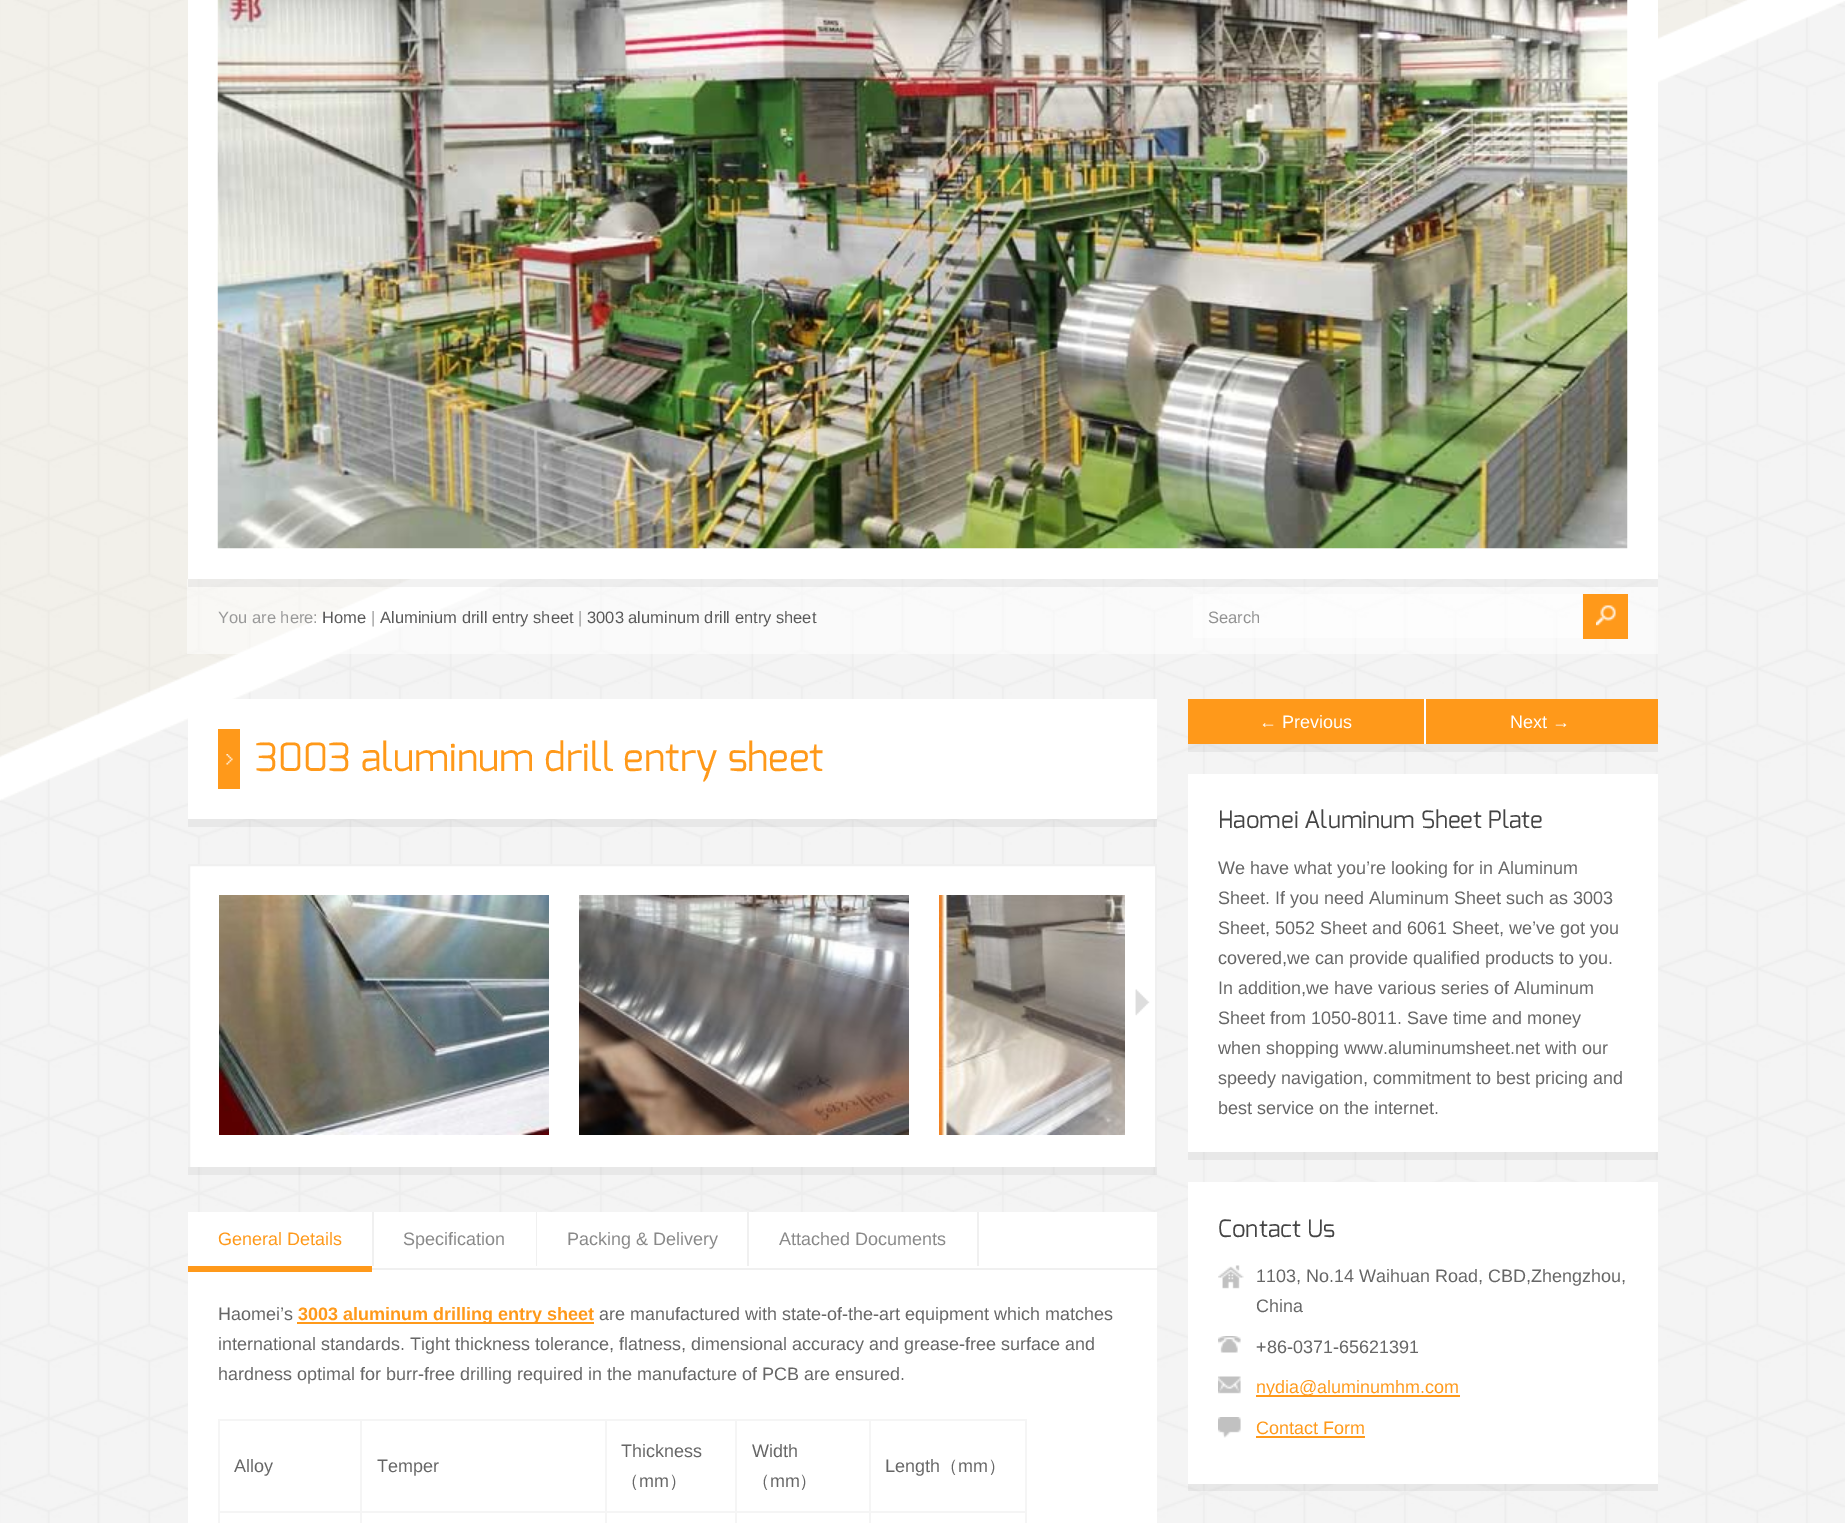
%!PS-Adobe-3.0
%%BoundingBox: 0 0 1845 1523
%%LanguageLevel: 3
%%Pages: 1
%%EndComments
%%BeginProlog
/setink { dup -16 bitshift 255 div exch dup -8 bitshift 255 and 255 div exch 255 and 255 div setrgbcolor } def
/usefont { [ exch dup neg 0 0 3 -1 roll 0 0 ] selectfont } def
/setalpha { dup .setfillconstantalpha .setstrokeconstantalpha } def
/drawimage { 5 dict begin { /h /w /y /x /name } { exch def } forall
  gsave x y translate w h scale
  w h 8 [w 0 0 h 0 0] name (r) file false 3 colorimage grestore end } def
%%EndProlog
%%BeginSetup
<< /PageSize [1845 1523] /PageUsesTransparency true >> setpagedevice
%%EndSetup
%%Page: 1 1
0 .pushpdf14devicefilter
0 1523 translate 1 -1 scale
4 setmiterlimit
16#FFFFFF setink
0 0 1845 1523 rectfill
(img1.raw) 0 0 1845 1523 drawimage
(img2.raw) 0 0 1845 801 drawimage
188 0 1470 579 rectfill
(img3.raw) 217 0 1411 549 drawimage
0.5 setalpha
187 579 1471 75 rectfill
0.05 setalpha
16#000000 setink
188 579 1470 8 rectfill
/LiberationSans-Regular 16.5 usefont
1 setalpha
16#999999 setink
218 623 moveto (You are here:) show
16#595959 setink
322 623 moveto (Home) show
16#999999 setink
371 623 moveto (|) show
16#595959 setink
380 623 moveto (Aluminium drill entry sheet) show
16#999999 setink
578 623 moveto (|) show
16#595959 setink
587 623 moveto (3003 aluminum drill entry sheet) show
0.5 setalpha
16#FFFFFF setink
1193 594 389 44 rectfill
1 setalpha
16#929292 setink
1208 623 moveto (Search) show
16#FF991A setink
1583 594 45 45 rectfill
(img4.raw) 1596 605 20 21 drawimage
0.05 setalpha
16#000000 setink
188 819 moveto 188 827 lineto 1157 827 lineto 1157 707 lineto 1156 707 lineto 1156 819 lineto closepath fill
1 setalpha
16#FFFFFF setink
188 699 969 120 rectfill
16#FF991A setink
218 729 22 60 rectfill
(img5.raw) 226 754 7 11 drawimage
/Exo-Regular 39 usefont
255 771 moveto (3003 aluminum drill entry sheet) show
0.05 setalpha
16#000000 setink
188 1167 moveto 188 1175 lineto 1157 1175 lineto 1157 872 lineto 1156 872 lineto 1156 1167 lineto closepath fill
1 setalpha
16#FFFFFF setink
190 866 965 301 rectfill
gsave
188 864 969 303 rectclip
16#F0F0F0 setink
2 setlinewidth
189 865 967 310 rectstroke
grestore
(img6.raw) 219 895 330 240 drawimage
(img7.raw) 579 895 330 240 drawimage
(img8.raw) 939 895 186 240 drawimage
(img9.raw) 1135 989 15 27 drawimage
[
    [188 1212 969 311 16#FFFFFF]
    [372 1268 785 2 16#F0F0F0]
    [372 1212 2 54 16#F0F0F0]
    [188 1266 184 6 16#FF991A]
] { aload pop setink rectfill } forall
/LiberationSans-Regular 18 usefont
218 1245 moveto (General Details) show
16#F0F0F0 setink
536 1212 1 54 rectfill
16#898989 setink
403 1245 moveto (Specification) show
16#F0F0F0 setink
747 1212 2 54 rectfill
16#898989 setink
567 1245 moveto (Packing & Delivery) show
16#F0F0F0 setink
977 1212 2 54 rectfill
16#898989 setink
779 1245 moveto (Attached Documents) show
16#666666 setink
218 1320 moveto (Haomei’s) show
16#FF991A setink
297 1322 297 2 rectfill
/LiberationSans-Bold 18 usefont
298 1320 moveto (3003 aluminum drilling entry sheet) show
/LiberationSans-Regular 18 usefont
16#666666 setink
[
    [(are manufactured with state-of-the-art equipment which matches) 599 1320]
    [(international standards. Tight thickness tolerance, flatness, dimensional accuracy and grease-free surface and) 218 1350]
    [(hardness optimal for burr-free drilling required in the manufacture of PCB are ensured.) 218 1380]
] { aload pop moveto show } forall
[
    [218 1419 808 2 16#F5F5F5]
    [1025 1419 2 104 16#F5F5F5]
    [218 1511 807 2 16#F5F5F5]
    [218 1421 2 102 16#F5F5F5]
] { aload pop setink rectfill } forall
16#666666 setink
234 1472 moveto (Alloy) show
16#F5F5F5 setink
360 1421 2 102 rectfill
16#666666 setink
377 1472 moveto (Temper) show
16#F5F5F5 setink
605 1421 2 102 rectfill
16#666666 setink
621 1457 moveto (Thickness) show
/WenQuanYiZenHei-Medium 18 usefont
621 1487 moveto (（) show
/LiberationSans-Regular 18 usefont
639 1487 moveto (mm) show
/WenQuanYiZenHei-Medium 18 usefont
669 1487 moveto (）) show
16#F5F5F5 setink
735 1421 2 102 rectfill
/LiberationSans-Regular 18 usefont
16#666666 setink
752 1457 moveto (Width) show
/WenQuanYiZenHei-Medium 18 usefont
752 1487 moveto (（) show
/LiberationSans-Regular 18 usefont
770 1487 moveto (mm) show
/WenQuanYiZenHei-Medium 18 usefont
799 1487 moveto (）) show
16#F5F5F5 setink
869 1421 2 102 rectfill
/LiberationSans-Regular 18 usefont
16#666666 setink
885 1472 moveto (Length) show
/WenQuanYiZenHei-Medium 18 usefont
940 1472 moveto (（) show
/LiberationSans-Regular 18 usefont
958 1472 moveto (mm) show
/WenQuanYiZenHei-Medium 18 usefont
988 1472 moveto (）) show
0.05 setalpha
16#000000 setink
1188 744 moveto 1188 752 lineto 1424 752 lineto 1424 707 lineto 1424 744 lineto closepath fill
1 setalpha
16#FF991A setink
1188 699 236 45 rectfill
/LiberationSans-Regular 18 usefont
16#FFFFFF setink
1259 728 moveto (← Previous) show
0.05 setalpha
16#000000 setink
1424 744 moveto 1424 752 lineto 1658 752 lineto 1658 707 lineto 1658 744 lineto closepath fill
1 setalpha
16#FF991A setink
1426 699 232 45 rectfill
16#FFFFFF setink
1424 699 2 45 rectfill
1510 728 moveto (Next →) show
0.05 setalpha
16#000000 setink
1188 1152 moveto 1188 1160 lineto 1658 1160 lineto 1658 782 lineto 1658 1152 lineto closepath fill
1 setalpha
16#FFFFFF setink
1188 774 470 378 rectfill
/Exo-Regular 24 usefont
16#444444 setink
1218 828 moveto (Haomei Aluminum Sheet Plate) show
/LiberationSans-Regular 18 usefont
16#666666 setink
[
    [(We have what you’re looking for in Aluminum) 1218 874]
    [(Sheet. If you need Aluminum Sheet such as 3003) 1218 904]
    [(Sheet, 5052 Sheet and 6061 Sheet, we’ve got you) 1218 934]
    [(covered,we can provide qualified products to you.) 1218 964]
    [(In addition,we have various series of Aluminum) 1218 994]
    [(Sheet from 1050-8011. Save time and money) 1218 1024]
    [(when shopping www.aluminumsheet.net with our) 1218 1054]
    [(speedy navigation, commitment to best pricing and) 1218 1084]
    [(best service on the internet.) 1218 1114]
] { aload pop moveto show } forall
0.05 setalpha
16#000000 setink
1188 1484 moveto 1188 1491 lineto 1658 1491 lineto 1658 1190 lineto 1658 1484 lineto closepath fill
1 setalpha
16#FFFFFF setink
1188 1182 470 302 rectfill
/Exo-Regular 24 usefont
16#444444 setink
1218 1237 moveto (Contact Us) show
(img10.raw) 1218 1265 26 24 drawimage
/LiberationSans-Regular 18 usefont
16#666666 setink
1256 1282 moveto (1103, No.14 Waihuan Road, CBD,Zhengzhou,) show
1256 1312 moveto (China) show
(img11.raw) 1218 1336 23 17 drawimage
1256 1353 moveto (+86-0371-65621391) show
(img12.raw) 1218 1376 23 18 drawimage
16#FF991A setink
1256 1395 204 2 rectfill
1256 1393 moveto (nydia@aluminumhm.com) show
(img13.raw) 1218 1417 23 21 drawimage
1256 1434 moveto (Contact Form) show
1256 1436 109 2 rectfill
.poppdf14devicefilter showpage
%%EOF
